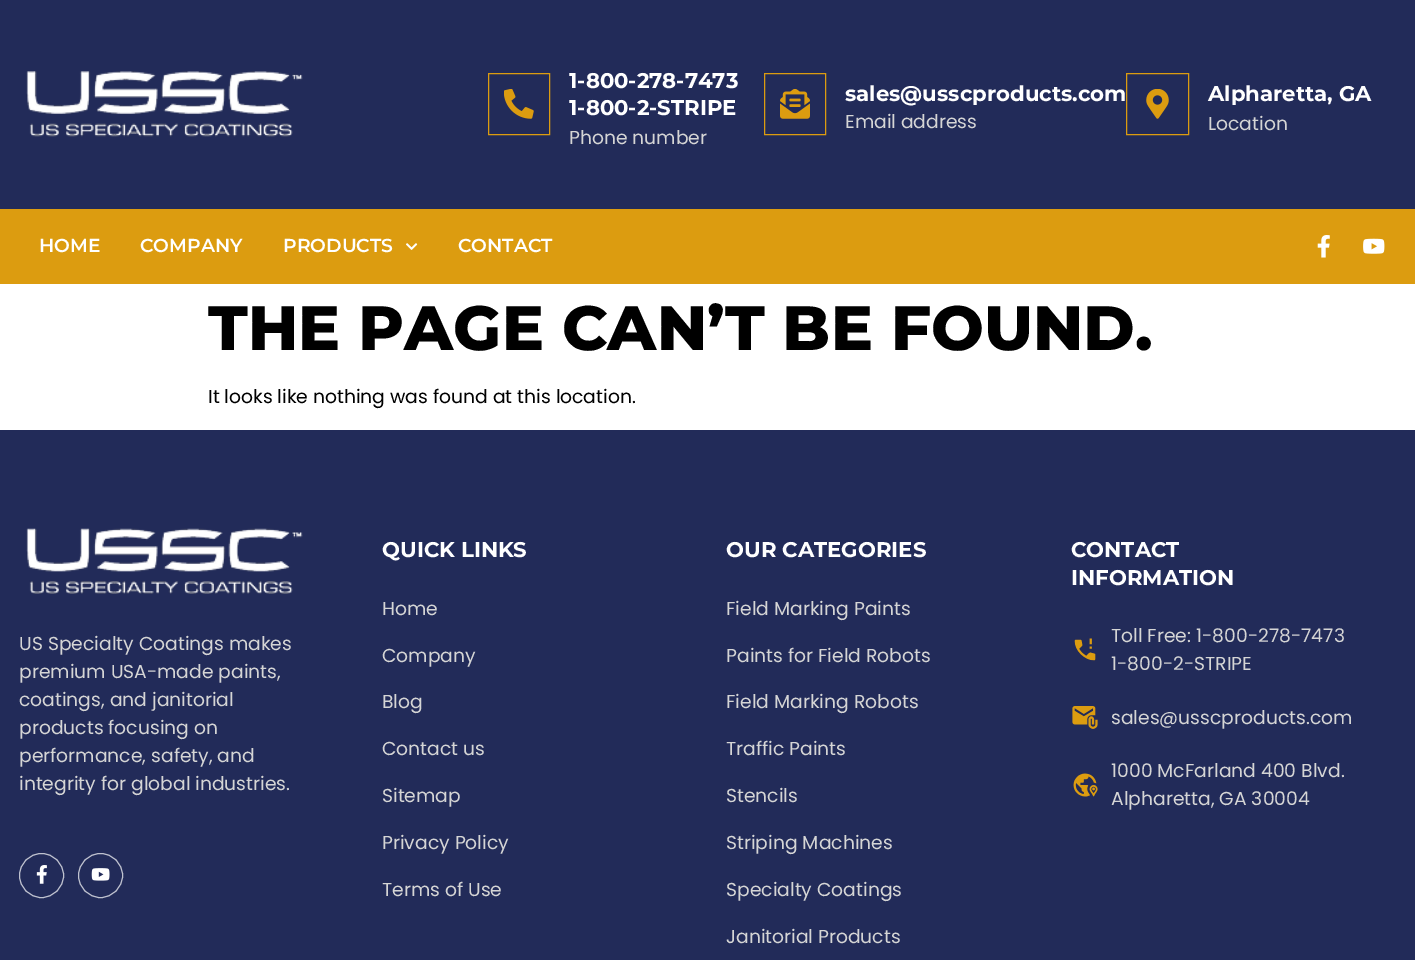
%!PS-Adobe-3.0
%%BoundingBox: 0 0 1415 960
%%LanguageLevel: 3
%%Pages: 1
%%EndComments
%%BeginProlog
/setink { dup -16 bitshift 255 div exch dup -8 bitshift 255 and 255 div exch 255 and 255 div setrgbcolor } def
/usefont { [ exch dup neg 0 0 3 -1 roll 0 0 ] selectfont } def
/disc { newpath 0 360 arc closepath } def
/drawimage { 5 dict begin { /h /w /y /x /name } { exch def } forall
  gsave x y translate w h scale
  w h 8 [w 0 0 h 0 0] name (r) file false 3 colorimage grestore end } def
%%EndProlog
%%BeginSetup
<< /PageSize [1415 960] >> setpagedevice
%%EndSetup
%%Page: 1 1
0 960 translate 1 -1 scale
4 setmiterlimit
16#FFFFFF setink
0 0 1415 960 rectfill
16#222B59 setink
0 0 1415 209 rectfill
(img1.raw) 26 71 277 66 drawimage
16#DC9C10 setink
488.5 73.5 61 61 rectstroke
(img2.raw) 504 89 30 30 drawimage
/Montserrat-Bold 21.25 usefont
16#FFFFFF setink
569 88 moveto (1-800-278-7473) show
569 115 moveto (1-800-2-STRIPE) show
/Poppins-Regular 18.75 usefont
16#D5D5D5 setink
569 144 moveto (Phone number) show
16#DC9C10 setink
764.5 73.5 61 61 rectstroke
(img3.raw) 780 89 30 30 drawimage
/Montserrat-Bold 21.25 usefont
16#FFFFFF setink
845 101 moveto (sales@usscproducts.com) show
/Poppins-Regular 18.75 usefont
16#D5D5D5 setink
845 128 moveto (Email address) show
16#DC9C10 setink
1126.5 73.5 62 61 rectstroke
(img4.raw) 1146 89 23 30 drawimage
/Montserrat-Bold 21.25 usefont
16#FFFFFF setink
1208 101 moveto (Alpharetta, GA) show
/Poppins-Regular 18.75 usefont
16#D5D5D5 setink
1208 130 moveto (Location) show
16#DC9C10 setink
0 209 1415 75 rectfill
/Montserrat-SemiBold 18.75 usefont
16#FFFFFF setink
[
    [(HOME) 39 252]
    [(COMPANY) 140 252]
    [(PRODUCTS) 283 252]
] { aload pop moveto show } forall
(img5.raw) 406 243 12 7 drawimage
458 252 moveto (CONTACT) show
(img6.raw) 1317 235 13 23 drawimage
(img7.raw) 1363 238 22 16 drawimage
/Montserrat-ExtraBold 62.5 usefont
16#000000 setink
208 350 moveto (THE PAGE CAN’T BE FOUND.) show
/Poppins-Regular 18.75 usefont
208 403 moveto (It looks like nothing was found at this location.) show
16#222B59 setink
0 430 1415 530 rectfill
(img8.raw) 26 528 277 66 drawimage
16#D5D5D5 setink
[
    [(US Specialty Coatings makes) 19 650]
    [(premium USA-made paints,) 19 678]
    [(coatings, and janitorial) 19 706]
    [(products focusing on) 19 734]
    [(performance, safety, and) 19 762]
    [(integrity for global industries.) 19 790]
] { aload pop moveto show } forall
16#BFC2CF setink
41.5 875.5 22 disc stroke
(img9.raw) 36 865 11 19 drawimage
100.5 875.5 22 disc stroke
(img10.raw) 91 868 19 13 drawimage
/Montserrat-Bold 21.25 usefont
16#FFFFFF setink
382 557 moveto (QUICK LINKS) show
/Poppins-Regular 18.75 usefont
16#D5D5D5 setink
[
    [(Home) 382 615]
    [(Company) 382 662]
    [(Blog) 382 708]
    [(Contact us) 382 755]
    [(Sitemap) 382 802]
    [(Privacy Policy) 382 849]
    [(Terms of Use) 382 896]
] { aload pop moveto show } forall
/Montserrat-Bold 21.25 usefont
16#FFFFFF setink
726 557 moveto (OUR CATEGORIES) show
/Poppins-Regular 18.75 usefont
16#D5D5D5 setink
[
    [(Field Marking Paints) 726 615]
    [(Paints for Field Robots) 726 662]
    [(Field Marking Robots) 726 708]
    [(Traffic Paints) 726 755]
    [(Stencils) 726 802]
    [(Striping Machines) 726 849]
    [(Specialty Coatings) 726 896]
    [(Janitorial Products) 726 943]
] { aload pop moveto show } forall
/Montserrat-Bold 21.25 usefont
16#FFFFFF setink
1071 557 moveto (CONTACT) show
1071 585 moveto (INFORMATION) show
(img11.raw) 1074 638 22 23 drawimage
/Poppins-Regular 18.75 usefont
16#D5D5D5 setink
1111 642 moveto (Toll Free: 1-800-278-7473) show
1111 670 moveto (1-800-2-STRIPE) show
(img12.raw) 1072 706 26 23 drawimage
1111 724 moveto (sales@usscproducts.com) show
(img13.raw) 1073 773 25 24 drawimage
1111 777 moveto (1000 McFarland 400 Blvd.) show
1111 805 moveto (Alpharetta, GA 30004) show
showpage
%%EOF
